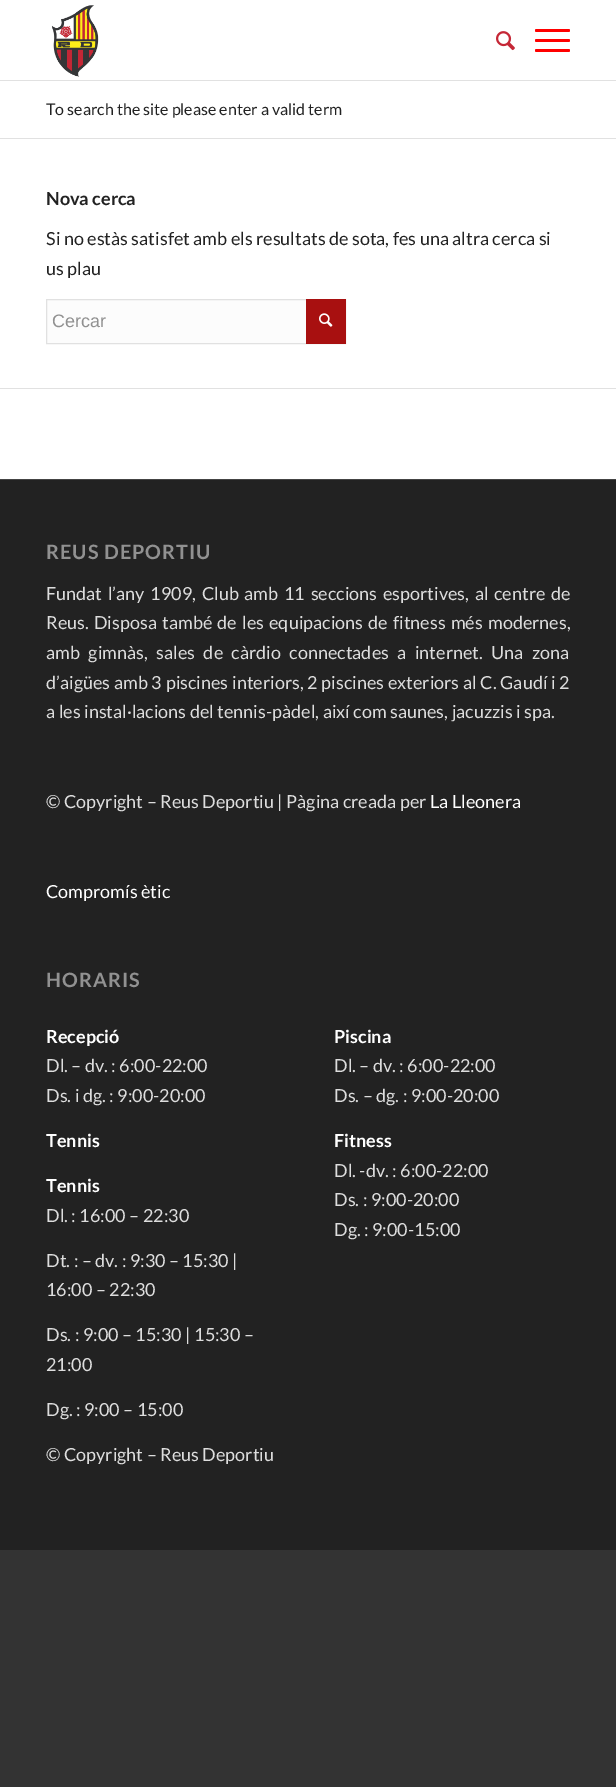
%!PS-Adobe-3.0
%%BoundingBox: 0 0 616 1787
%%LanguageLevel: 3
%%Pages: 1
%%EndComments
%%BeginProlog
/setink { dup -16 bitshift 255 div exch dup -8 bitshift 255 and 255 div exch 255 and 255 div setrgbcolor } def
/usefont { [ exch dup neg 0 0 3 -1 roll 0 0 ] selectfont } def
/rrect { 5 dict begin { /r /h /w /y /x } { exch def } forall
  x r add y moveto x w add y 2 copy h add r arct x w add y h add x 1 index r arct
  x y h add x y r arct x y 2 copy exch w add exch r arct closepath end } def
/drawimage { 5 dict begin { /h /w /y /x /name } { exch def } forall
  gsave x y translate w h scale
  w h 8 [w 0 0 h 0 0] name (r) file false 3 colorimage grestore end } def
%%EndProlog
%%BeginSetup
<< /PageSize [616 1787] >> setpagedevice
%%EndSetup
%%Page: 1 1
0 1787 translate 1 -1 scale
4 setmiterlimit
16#333333 setink
0 0 616 1787 rectfill
16#FFFFFF setink
0 0 616 80 rectfill
16#E1E1E1 setink
0 80 616 1 rectfill
(img1.raw) 51 5 48 72 drawimage
(img2.raw) 496 31 19 20 drawimage
16#FF0000 setink
535 39 35 3 1.5 rrect fill
535 29 35 3 1.5 rrect fill
535 49 35 3 1.5 rrect fill
16#FFFFFF setink
0 81 616 398 rectfill
/Lato-Regular 16 usefont
16#222222 setink
46 115 moveto (To search the site please enter a valid term) show
16#E1E1E1 setink
0 138 616 1 rectfill
/Lato-Bold 18 usefont
16#222222 setink
46 205 moveto (Nova cerca) show
/Lato-Regular 18 usefont
46 245 moveto (Si no estàs satisfet amb els resultats de sota, fes una altra cerca si) show
46 275 moveto (us plau) show
16#FCFCFC setink
47 300 259 43 rectfill
16#E1E1E1 setink
46.5 299.5 299 44 rectstroke
/LiberationSans-Regular 18 usefont
16#919191 setink
52 327 moveto (Cercar) show
16#A81010 setink
306 299 40 45 rectfill
(img3.raw) 319 313 14 14 drawimage
[
    [0 388 616 1 16#E1E1E1]
    [0 480 616 1070 16#222222]
    [0 479 616 1 16#444444]
] { aload pop setink rectfill } forall
/Lato-Bold 19.75 usefont
16#919191 setink
46 559 moveto 1 0 (REUS DEPORTIU) ashow
/Lato-Regular 18 usefont
16#DDDDDD setink
46 600 moveto 2.25 0 32 (Fundat l’any 1909, Club amb 11 seccions esportives, al centre de) widthshow
46 629 moveto 1.75 0 32 (Reus. Disposa també de les equipacions de fitness més modernes,) widthshow
46 659 moveto 5 0 32 (amb gimnàs, sales de càrdio connectades a internet. Una zona) widthshow
46 689 moveto 0.25 0 32 (d’aigües amb 3 piscines interiors, 2 piscines exteriors al C. Gaudí i 2) widthshow
46 718 moveto (a les instal·lacions del tennis-pàdel, així com saunes, jacuzzis i spa.) show
46 808 moveto (© Copyright – Reus Deportiu | Pàgina creada per) show
16#FFFFFF setink
430 808 moveto (La Lleonera) show
46 898 moveto (Compromís ètic) show
/Lato-Bold 19.75 usefont
16#919191 setink
46 987 moveto 1 0 (HORARIS) ashow
/Lato-Bold 18 usefont
16#FFFFFF setink
46 1043 moveto (Recepció) show
/Lato-Regular 18 usefont
16#DDDDDD setink
46 1072 moveto (Dl. – dv. : 6:00-22:00) show
46 1102 moveto (Ds. i dg. : 9:00-20:00) show
/Lato-Bold 18 usefont
16#FFFFFF setink
46 1147 moveto (Tennis) show
46 1192 moveto (Tennis) show
/Lato-Regular 18 usefont
16#DDDDDD setink
[
    [(Dl. : 16:00 – 22:30) 46 1222]
    [(Dt. : – dv. : 9:30 – 15:30 |) 46 1267]
    [(16:00 – 22:30) 46 1296]
    [(Ds. : 9:00 – 15:30 | 15:30 –) 46 1341]
    [(21:00) 46 1371]
    [(Dg. : 9:00 – 15:00) 46 1416]
] { aload pop moveto show } forall
/Lato-Bold 18 usefont
16#FFFFFF setink
334 1043 moveto (Piscina) show
/Lato-Regular 18 usefont
16#DDDDDD setink
334 1072 moveto (Dl. – dv. : 6:00-22:00) show
334 1102 moveto (Ds. – dg. : 9:00-20:00) show
/Lato-Bold 18 usefont
16#FFFFFF setink
334 1147 moveto (Fitness) show
/Lato-Regular 18 usefont
16#DDDDDD setink
[
    [(Dl. -dv. : 6:00-22:00) 334 1177]
    [(Ds. : 9:00-20:00) 334 1206]
    [(Dg. : 9:00-15:00) 334 1236]
    [(© Copyright – Reus Deportiu) 46 1461]
] { aload pop moveto show } forall
showpage
%%EOF
